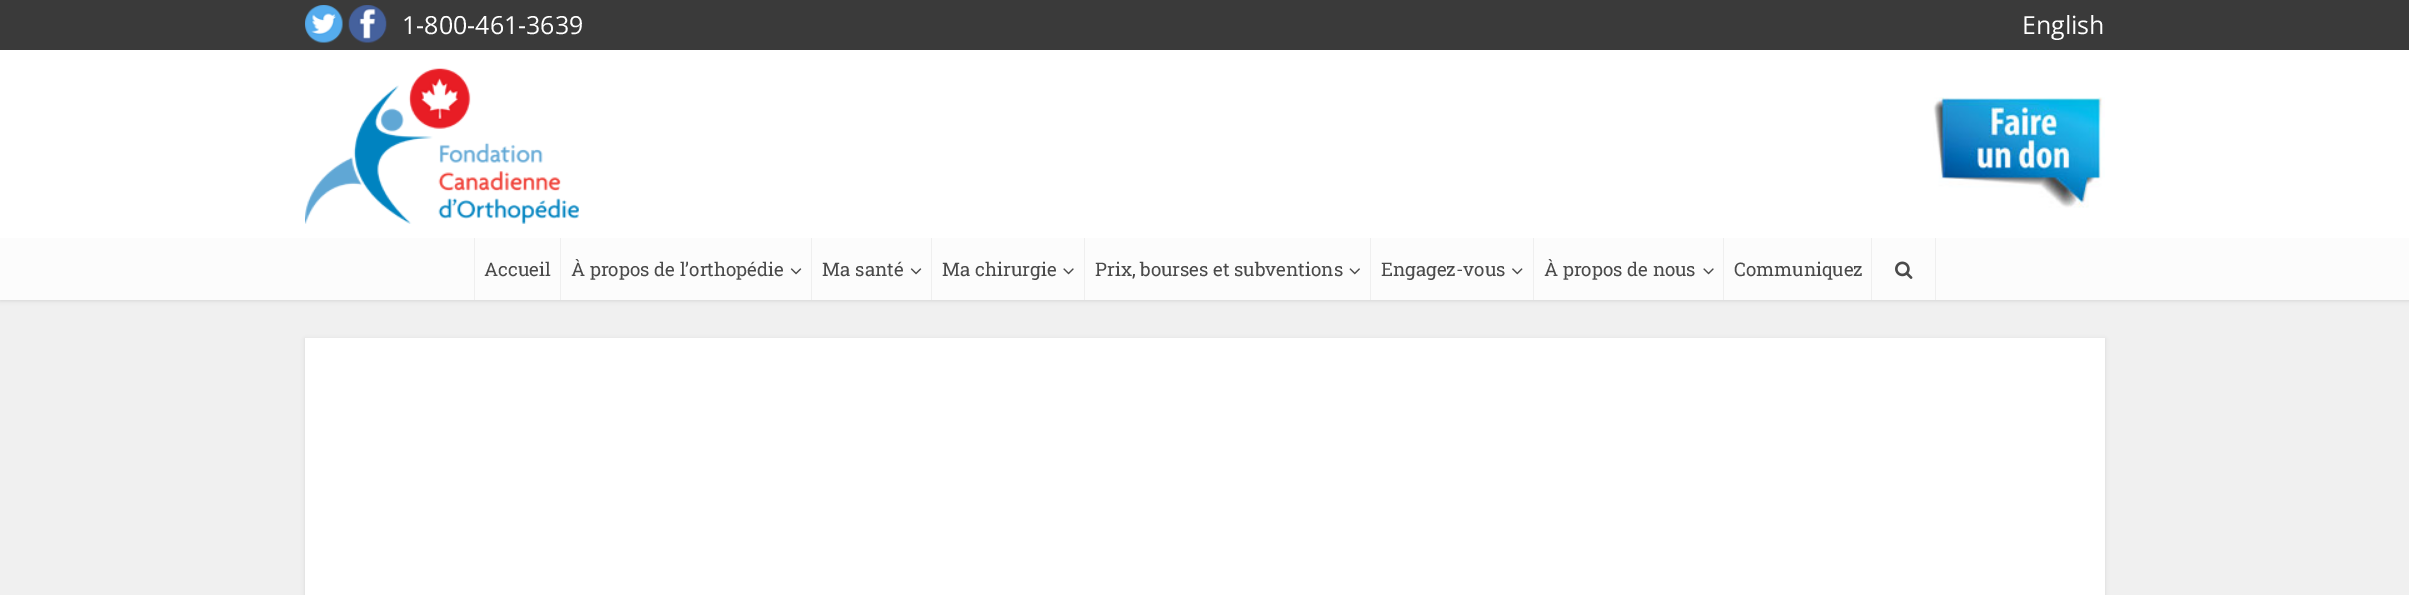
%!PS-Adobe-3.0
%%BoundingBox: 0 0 2409 595
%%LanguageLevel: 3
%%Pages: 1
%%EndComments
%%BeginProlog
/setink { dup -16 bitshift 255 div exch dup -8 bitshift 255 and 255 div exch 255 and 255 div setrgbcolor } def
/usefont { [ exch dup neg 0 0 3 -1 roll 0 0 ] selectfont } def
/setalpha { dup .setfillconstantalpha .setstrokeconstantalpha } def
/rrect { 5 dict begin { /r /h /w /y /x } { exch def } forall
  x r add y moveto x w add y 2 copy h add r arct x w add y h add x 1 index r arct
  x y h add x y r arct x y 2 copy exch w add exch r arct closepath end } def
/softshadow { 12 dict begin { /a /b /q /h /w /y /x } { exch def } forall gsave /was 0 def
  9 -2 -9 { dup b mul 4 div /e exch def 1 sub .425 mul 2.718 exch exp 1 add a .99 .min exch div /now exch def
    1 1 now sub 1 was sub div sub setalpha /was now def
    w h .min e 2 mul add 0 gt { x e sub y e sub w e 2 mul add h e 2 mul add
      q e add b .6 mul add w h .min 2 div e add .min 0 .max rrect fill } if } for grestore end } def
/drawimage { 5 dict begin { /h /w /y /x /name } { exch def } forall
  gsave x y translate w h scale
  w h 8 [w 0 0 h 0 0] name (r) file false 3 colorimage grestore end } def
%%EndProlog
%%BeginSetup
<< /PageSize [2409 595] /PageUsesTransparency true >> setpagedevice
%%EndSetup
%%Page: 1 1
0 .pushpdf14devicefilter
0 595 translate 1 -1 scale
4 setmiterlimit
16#F0F0F0 setink
0 0 2409 595 rectfill
16#000000 setink
0 1 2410 300 0 2 0.1 softshadow
16#FFFFFF setink
0 50 2409 188 rectfill
16#3A3A3A setink
0 0 2409 50 rectfill
(img1.raw) 305 5 38 38 drawimage
(img2.raw) 348 5 39 38 drawimage
/OpenSans-Regular 25 usefont
16#FFFFFF setink
402 34 moveto (1-800-461-3639) show
2022 34 moveto (English) show
(img3.raw) 305 68 274 156 drawimage
(img4.raw) 1933 97 172 111 drawimage
16#FCFCFC setink
0 238 2409 62 rectfill
16#EFEFEF setink
474 238 1 62 rectfill
/RobotoSlab-Regular 18.75 usefont
16#4A4A4A setink
484 276 moveto (Accueil) show
16#EFEFEF setink
560 238 1 62 rectfill
16#4A4A4A setink
571 276 moveto (À propos de l’orthopédie) show
(img5.raw) 790 268 12 7 drawimage
16#EFEFEF setink
811 238 1 62 rectfill
16#4A4A4A setink
822 276 moveto (Ma santé) show
(img5.raw) 910 268 12 7 drawimage
16#EFEFEF setink
931 238 1 62 rectfill
16#4A4A4A setink
942 276 moveto (Ma chirurgie) show
(img6.raw) 1063 268 11 7 drawimage
16#EFEFEF setink
1084 238 1 62 rectfill
16#4A4A4A setink
1095 276 moveto (Prix, bourses et subventions) show
(img7.raw) 1349 268 11 7 drawimage
16#EFEFEF setink
1370 238 1 62 rectfill
16#4A4A4A setink
1381 276 moveto (Engagez-vous) show
(img8.raw) 1512 268 11 7 drawimage
16#EFEFEF setink
1533 238 1 62 rectfill
16#4A4A4A setink
1544 276 moveto (À propos de nous) show
(img6.raw) 1703 268 11 7 drawimage
16#EFEFEF setink
1723 238 1 62 rectfill
16#4A4A4A setink
1734 276 moveto (Communiquez) show
16#EFEFEF setink
1935 238 1 62 rectfill
1871 238 1 62 rectfill
(img9.raw) 1895 261 18 18 drawimage
16#000000 setink
305 339 1800 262 0 2 0.1 softshadow
16#FFFFFF setink
305 338 1800 257 rectfill
.poppdf14devicefilter showpage
%%EOF
